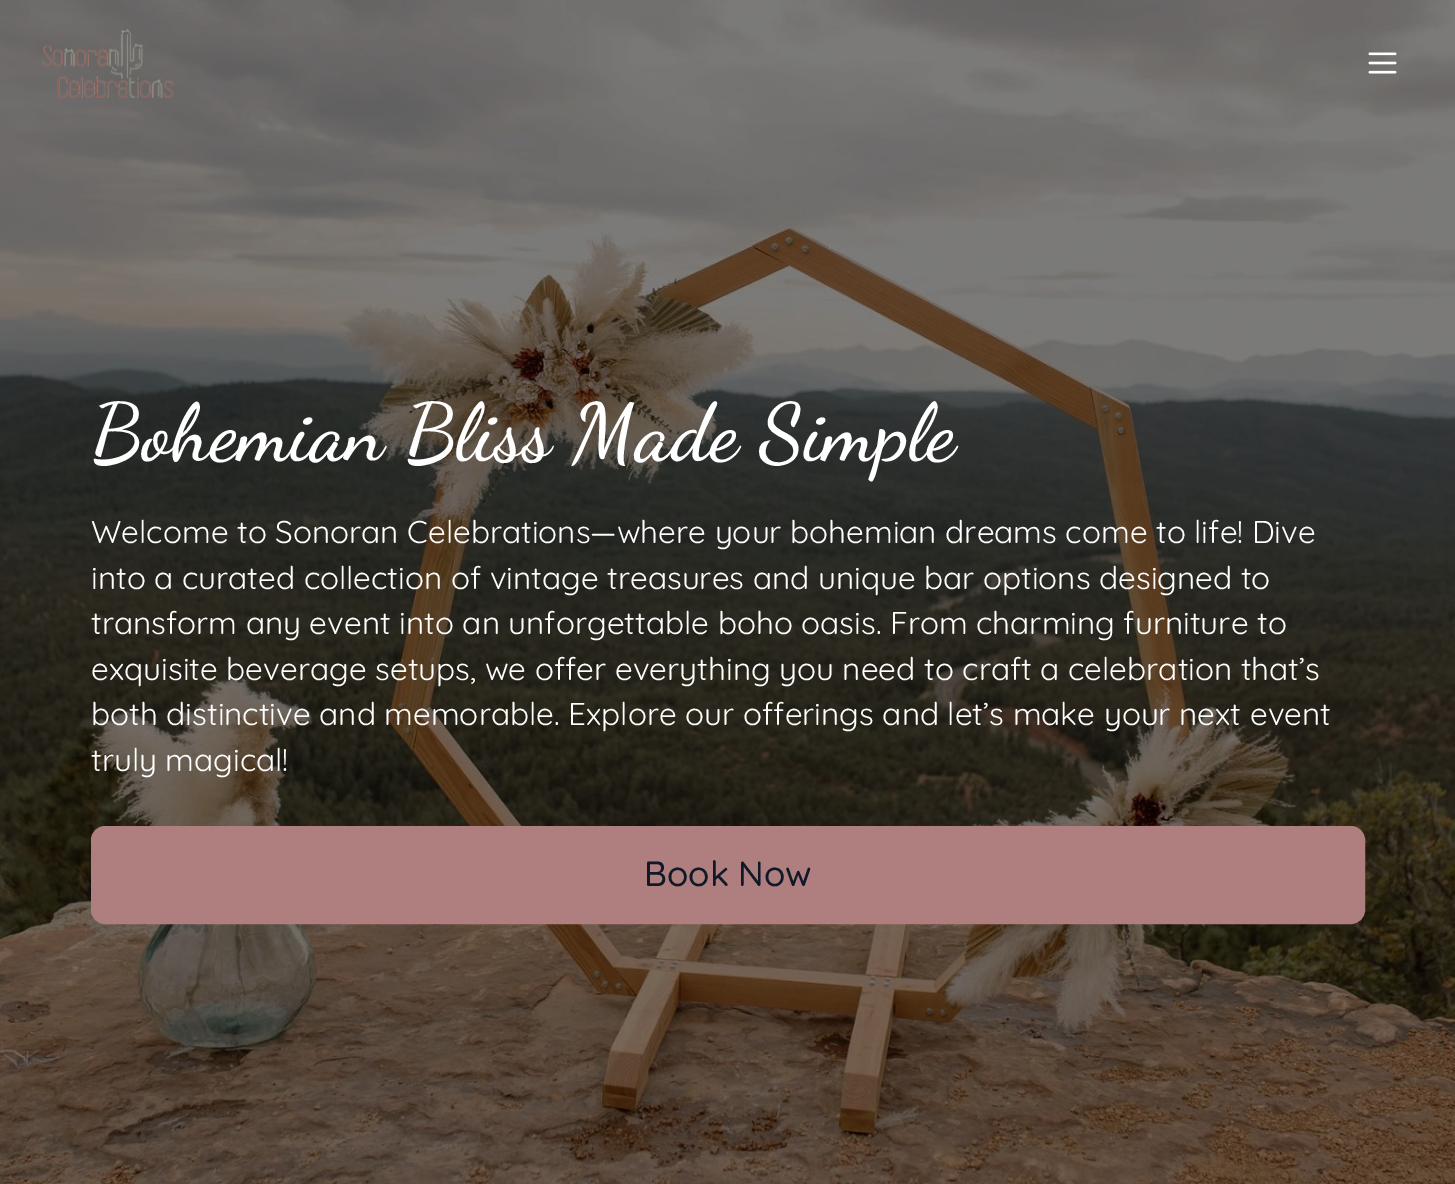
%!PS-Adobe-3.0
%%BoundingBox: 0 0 1455 1184
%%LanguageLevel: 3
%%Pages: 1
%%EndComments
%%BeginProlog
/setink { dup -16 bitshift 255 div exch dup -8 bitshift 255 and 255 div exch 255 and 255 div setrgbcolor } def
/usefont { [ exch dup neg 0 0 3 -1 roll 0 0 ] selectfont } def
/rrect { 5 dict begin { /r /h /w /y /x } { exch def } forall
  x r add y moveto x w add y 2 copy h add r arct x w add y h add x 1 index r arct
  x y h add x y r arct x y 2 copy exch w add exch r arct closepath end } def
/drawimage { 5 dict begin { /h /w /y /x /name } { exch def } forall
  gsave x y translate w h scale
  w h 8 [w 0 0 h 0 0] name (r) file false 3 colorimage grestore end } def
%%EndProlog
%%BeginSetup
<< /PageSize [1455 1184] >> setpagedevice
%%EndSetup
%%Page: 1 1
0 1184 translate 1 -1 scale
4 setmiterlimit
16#FFFFFF setink
0 0 1455 1184 rectfill
(img3.raw) 0 0 1455 1184 drawimage
(img1.raw) 42 28 132 70 drawimage
(img2.raw) 1368 52 29 22 drawimage
/DancingScript-SemiBold 80.5 usefont
91 459 moveto (Bohemian Bliss Made Simple) show
/Quicksand-Regular 31.5 usefont
[
    [(Welcome to Sonoran Celebrations—where your bohemian dreams come to life! Dive) 91 543]
    [(into a curated collection of vintage treasures and unique bar options designed to) 91 589]
    [(transform any event into an unforgettable boho oasis. From charming furniture to) 91 634]
    [(exquisite beverage setups, we offer everything you need to craft a celebration that’s) 91 680]
    [(both distinctive and memorable. Explore our offerings and let’s make your next event) 91 725]
    [(truly magical!) 91 771]
] { aload pop moveto show } forall
16#AF7E7E setink
93 828 1270 94 12 rrect gsave fill grestore
4 setlinewidth
stroke
/Quicksand-Medium 35 usefont
16#111827 setink
644 886 moveto (Book Now) show
showpage
%%EOF
